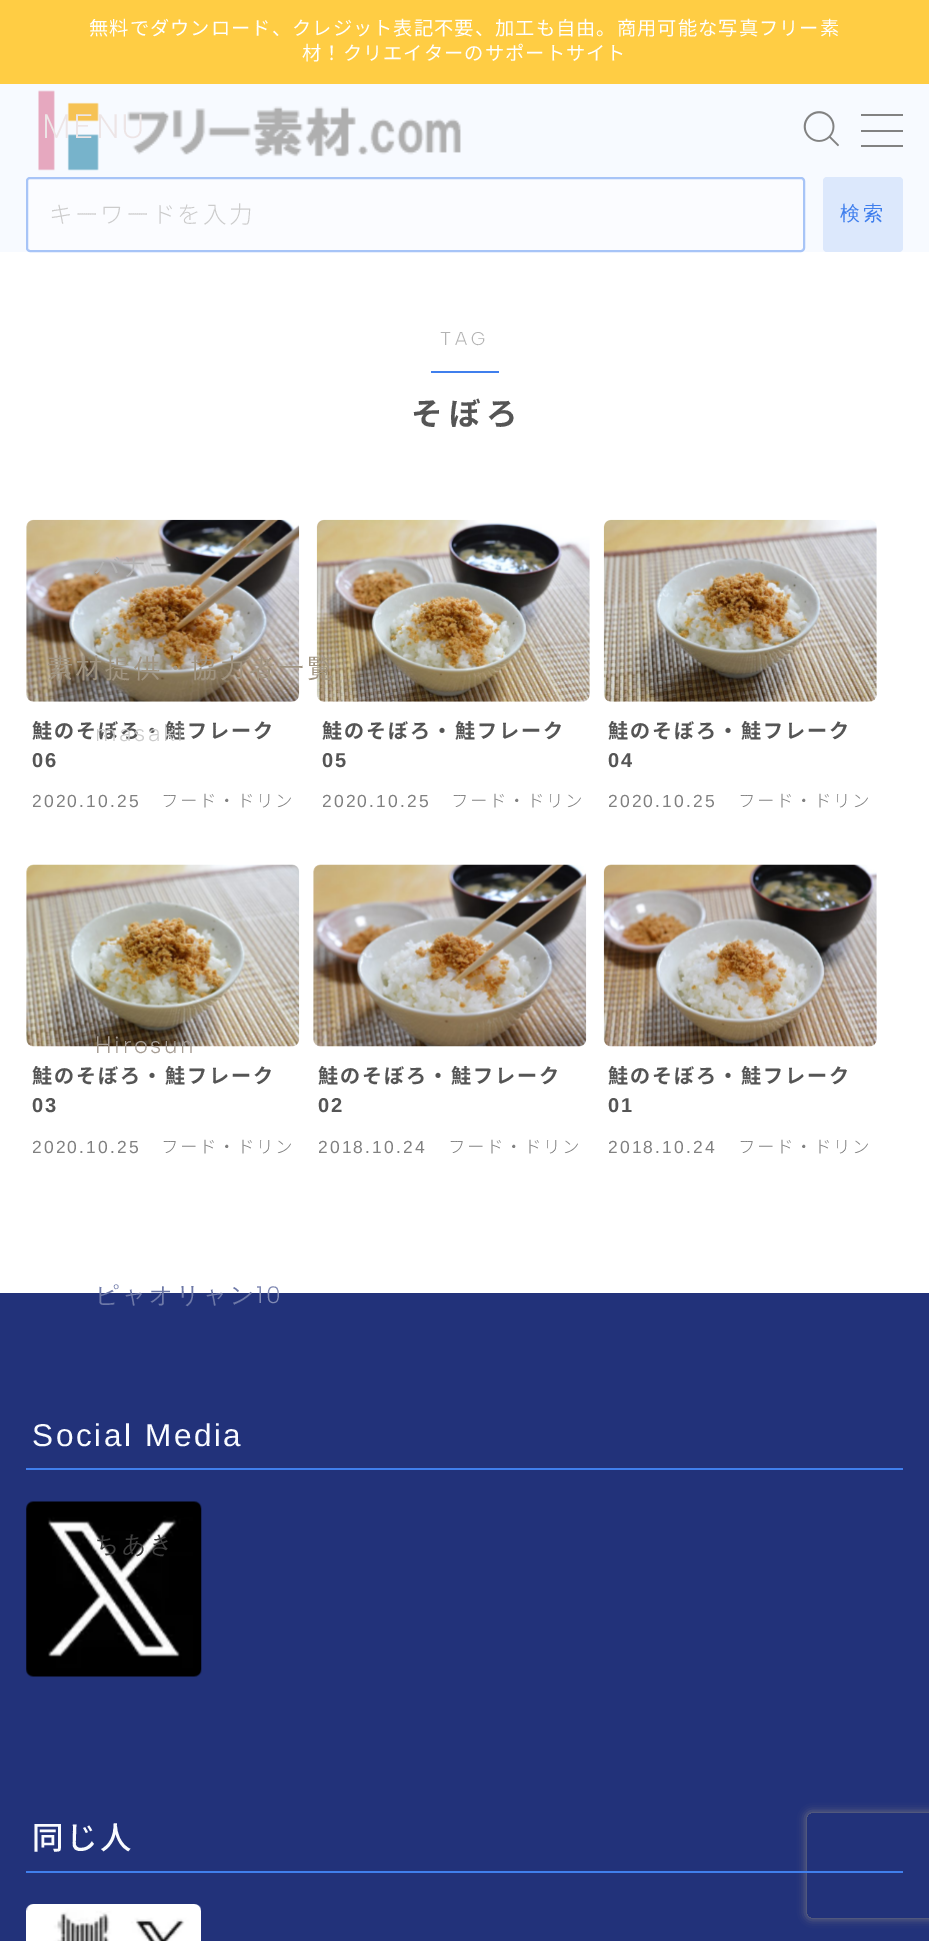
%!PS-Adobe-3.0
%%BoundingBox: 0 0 929 1941
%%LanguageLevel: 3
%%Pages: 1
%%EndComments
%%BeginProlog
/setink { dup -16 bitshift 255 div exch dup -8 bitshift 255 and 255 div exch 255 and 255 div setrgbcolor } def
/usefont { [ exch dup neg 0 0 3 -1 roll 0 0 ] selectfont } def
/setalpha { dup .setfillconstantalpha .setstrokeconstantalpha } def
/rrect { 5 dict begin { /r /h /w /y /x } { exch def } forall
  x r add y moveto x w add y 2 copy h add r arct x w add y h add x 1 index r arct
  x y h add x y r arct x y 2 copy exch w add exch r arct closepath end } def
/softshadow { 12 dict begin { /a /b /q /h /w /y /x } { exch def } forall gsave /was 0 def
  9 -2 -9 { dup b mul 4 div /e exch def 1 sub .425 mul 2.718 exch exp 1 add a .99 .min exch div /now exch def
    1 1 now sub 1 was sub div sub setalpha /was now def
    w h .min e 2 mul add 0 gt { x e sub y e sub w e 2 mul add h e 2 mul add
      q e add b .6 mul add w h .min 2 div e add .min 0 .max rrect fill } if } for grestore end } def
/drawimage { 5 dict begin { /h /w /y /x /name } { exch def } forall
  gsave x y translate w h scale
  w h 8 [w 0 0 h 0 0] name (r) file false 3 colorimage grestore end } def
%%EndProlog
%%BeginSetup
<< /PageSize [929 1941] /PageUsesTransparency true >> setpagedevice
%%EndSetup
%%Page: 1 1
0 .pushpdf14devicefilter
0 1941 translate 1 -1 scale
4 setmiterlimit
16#F7FAFF setink
0 0 929 1941 rectfill
16#FFCD44 setink
0 0 929 84 rectfill
/NotoSansCJKJP-Regular 19.25 usefont
16#FFFFFF setink
89 35 moveto 1.05 0 (無料でダウンロード、クレジット表記不要、加工も自由。商用可能な写真フリー素) ashow
302 60 moveto 1.05 0 (材！クリエイターのサポートサイト) ashow
(img1.raw) 38 90 423 81 drawimage
(img2.raw) 803 111 36 36 drawimage
/AlbertSans-Light 34 usefont
16#EDE5E6 setink
42 138 moveto 2 0 (MENU) ashow
16#FFFFFF setink
0 252 929 1041 rectfill
(img3.raw) 26 519 274 183 drawimage
/WenQuanYiZenHei-Medium 23.75 usefont
16#B3B3B3 setink
95 574 moveto 2.6 0 (バナー) ashow
(img4.raw) 316 519 274 183 drawimage
/WenQuanYiZenHei-Medium 26.25 usefont
16#A09481 setink
47 677 moveto 2.6 0 (素材提供・協力者一覧) ashow
/NotoSansCJKJP-Bold 20.1 usefont
16#555555 setink
32 738 moveto 2 0 (鮭のそぼろ・鮭フレーク) ashow
/AlbertSans-Light 23.75 usefont
16#CCCCCC setink
95 741 moveto 2.6 0 (masaki) ashow
(img6.raw) 26 864 274 183 drawimage
16#A69D94 setink
95 1053 moveto 2.6 0 (Hirosun) ashow
16#22327A setink
0 1293 929 648 rectfill
/WenQuanYiZenHei-Medium 23.75 usefont
16#6D78A7 setink
95 1303 moveto 2.6 0 (ピャオリャン) ashow
/AlbertSans-Light 23.75 usefont
16#818AB3 setink
256 1303 moveto 2.6 0 (10) ashow
(img9.raw) 26 1501 176 176 drawimage
/WenQuanYiZenHei-Medium 23.75 usefont
16#404040 setink
95 1552 moveto 2.6 0 (ちあき) ashow
[
    [861 114 42 2 16#828282]
    [861 130 42 2 16#828282]
    [861 145 42 2 16#828282]
] { aload pop setink rectfill } forall
16#FBFCFF setink
27 178 777 73 3 rrect gsave fill grestore
16#A7C4F7 setink
2 setlinewidth
stroke
/NotoSansCJKJP-Light 23.6 usefont
16#CCCCCC setink
49 223 moveto 2.1 0 (キーワードを入力) ashow
16#DCE8FC setink
823 177 80 75 4 rrect fill
/WenQuanYiZenHei-Medium 20.1 usefont
16#407FED setink
840 220 moveto 2.6 0 (検索) ashow
/AlbertSans-Light 18.5 usefont
16#B3B3B3 setink
440 345 moveto 4 0 (TAG) ashow
16#407FED setink
431 371 68 2 rectfill
/NotoSansCJKJP-Bold 31.5 usefont
16#555555 setink
411 425 moveto 6 0 (そぼろ) ashow
/LiberationSans-Bold 20.1 usefont
32 767 moveto 2 0 (06) ashow
/LiberationSans-Regular 17.5 usefont
16#808080 setink
32 807 moveto 2.1 0 (2020.10.25) ashow
/NotoSansCJKJP-Light 17.5 usefont
161 807 moveto 1.5 0 (フード・ドリン) ashow
/NotoSansCJKJP-Bold 20.1 usefont
16#555555 setink
322 738 moveto 2 0 (鮭のそぼろ・鮭フレーク) ashow
/LiberationSans-Bold 20.1 usefont
322 767 moveto 2 0 (05) ashow
/LiberationSans-Regular 17.5 usefont
16#808080 setink
322 807 moveto 2.1 0 (2020.10.25) ashow
/NotoSansCJKJP-Light 17.5 usefont
451 807 moveto 1.5 0 (フード・ドリン) ashow
(img5.raw) 603 519 274 183 drawimage
/NotoSansCJKJP-Bold 20.1 usefont
16#555555 setink
608 738 moveto 2 0 (鮭のそぼろ・鮭フレーク) ashow
/LiberationSans-Bold 20.1 usefont
608 767 moveto 2 0 (04) ashow
/LiberationSans-Regular 17.5 usefont
16#808080 setink
608 807 moveto 2.1 0 (2020.10.25) ashow
/NotoSansCJKJP-Light 17.5 usefont
738 807 moveto 1.5 0 (フード・ドリン) ashow
/NotoSansCJKJP-Bold 20.1 usefont
16#555555 setink
32 1083 moveto 2 0 (鮭のそぼろ・鮭フレーク) ashow
/LiberationSans-Bold 20.1 usefont
32 1112 moveto 2 0 (03) ashow
/LiberationSans-Regular 17.5 usefont
16#808080 setink
32 1153 moveto 2.1 0 (2020.10.25) ashow
/NotoSansCJKJP-Light 17.5 usefont
161 1153 moveto 1.5 0 (フード・ドリン) ashow
(img7.raw) 313 864 274 183 drawimage
/NotoSansCJKJP-Bold 20.1 usefont
16#555555 setink
318 1083 moveto 2 0 (鮭のそぼろ・鮭フレーク) ashow
/LiberationSans-Bold 20.1 usefont
318 1112 moveto 2 0 (02) ashow
/LiberationSans-Regular 17.5 usefont
16#808080 setink
318 1153 moveto 2.1 0 (2018.10.24) ashow
/NotoSansCJKJP-Light 17.5 usefont
448 1153 moveto 1.5 0 (フード・ドリン) ashow
(img8.raw) 603 864 274 183 drawimage
/NotoSansCJKJP-Bold 20.1 usefont
16#555555 setink
608 1083 moveto 2 0 (鮭のそぼろ・鮭フレーク) ashow
/LiberationSans-Bold 20.1 usefont
608 1112 moveto 2 0 (01) ashow
/LiberationSans-Regular 17.5 usefont
16#808080 setink
608 1153 moveto 2.1 0 (2018.10.24) ashow
/NotoSansCJKJP-Light 17.5 usefont
738 1153 moveto 1.5 0 (フード・ドリン) ashow
16#407FED setink
26 1468 877 2 rectfill
/LiberationSans-Regular 31.5 usefont
16#F9FBFF setink
32 1446 moveto 2.6 0 (Social Media) ashow
gsave
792 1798 moveto 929 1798 lineto 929 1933 lineto 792 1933 lineto closepath 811 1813 moveto 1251 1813 lineto 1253 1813 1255 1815 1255 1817 curveto 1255 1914 lineto 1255 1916 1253 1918 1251 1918 curveto 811 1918 lineto 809 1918 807 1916 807 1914 curveto 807 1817 lineto 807 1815 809 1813 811 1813 curveto closepath eoclip newpath
16#808080 setink
807 1813 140 105 4 4.5 1 softshadow
grestore
16#407FED setink
26 1871 877 2 rectfill
/NotoSansCJKJP-Medium 31.5 usefont
16#F9FBFF setink
32 1849 moveto 2.6 0 (同じ人) ashow
(img10.raw) 26 1904 175 37 drawimage
.poppdf14devicefilter showpage
%%EOF
